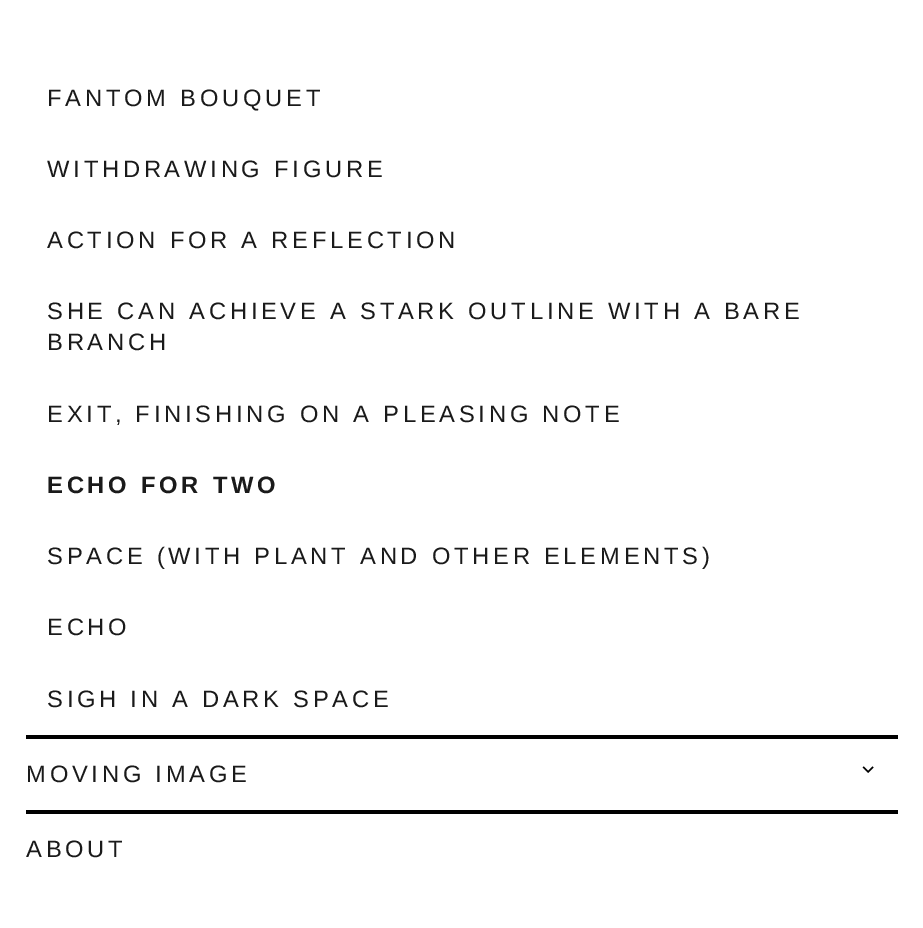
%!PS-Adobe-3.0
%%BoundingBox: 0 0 923 928
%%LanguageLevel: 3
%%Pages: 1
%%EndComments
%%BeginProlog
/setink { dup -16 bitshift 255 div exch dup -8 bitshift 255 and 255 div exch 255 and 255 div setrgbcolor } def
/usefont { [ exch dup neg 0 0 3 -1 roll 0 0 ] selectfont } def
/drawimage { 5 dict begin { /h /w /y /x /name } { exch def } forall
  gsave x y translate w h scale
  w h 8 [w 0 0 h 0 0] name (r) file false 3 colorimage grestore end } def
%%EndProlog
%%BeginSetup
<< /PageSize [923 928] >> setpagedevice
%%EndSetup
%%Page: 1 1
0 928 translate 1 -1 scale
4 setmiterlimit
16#FFFFFF setink
0 0 923 928 rectfill
/LiberationSans-Regular 23.75 usefont
16#1A1A1A setink
47 106 moveto 3.75 0 (FANTOM BOUQUET) ashow
47 177 moveto 3.75 0 (WITHDRAWING FIGURE) ashow
47 248 moveto 3.75 0 (ACTION FOR A REFLECTION) ashow
47 319 moveto 3.75 0 (SHE CAN ACHIEVE A STARK OUTLINE WITH A BARE) ashow
47 350 moveto 3.75 0 (BRANCH) ashow
47 422 moveto 3.75 0 (EXIT, FINISHING ON A PLEASING NOTE) ashow
/LiberationSans-Bold 23.75 usefont
47 493 moveto 3.75 0 (ECHO FOR TWO) ashow
/LiberationSans-Regular 23.75 usefont
47 564 moveto 3.75 0 (SPACE \(WITH PLANT AND OTHER ELEMENTS\)) ashow
47 635 moveto 3.75 0 (ECHO) ashow
47 707 moveto 3.75 0 (SIGH IN A DARK SPACE) ashow
16#000000 setink
26 735 872 4 rectfill
16#1A1A1A setink
26 782 moveto 3.75 0 (MOVING IMAGE) ashow
(img1.raw) 862 766 12 7 drawimage
16#000000 setink
26 810 872 4 rectfill
16#1A1A1A setink
26 857 moveto 3.75 0 (ABOUT) ashow
showpage
%%EOF
